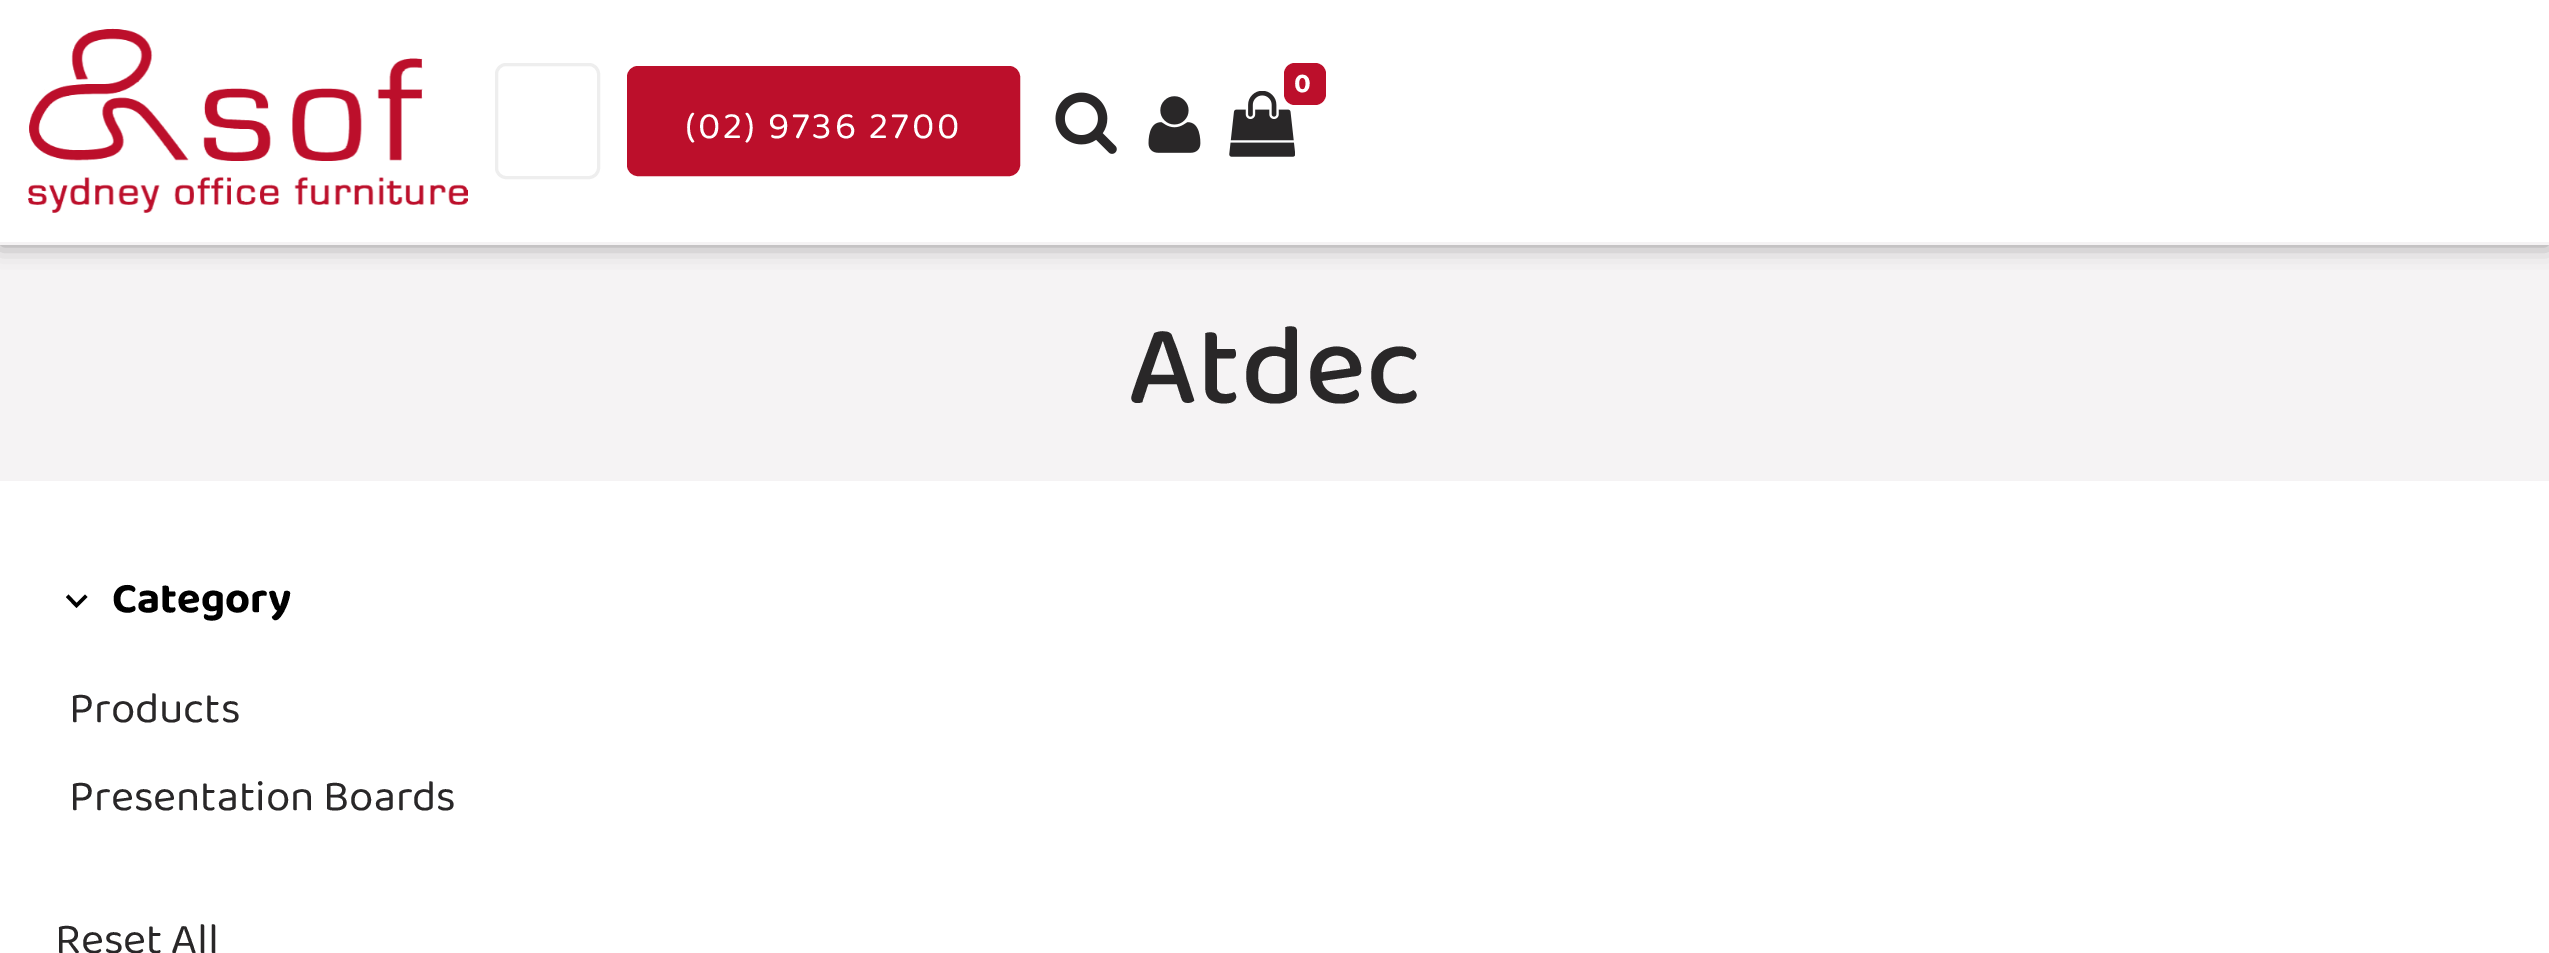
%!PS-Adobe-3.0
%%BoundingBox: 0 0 2549 953
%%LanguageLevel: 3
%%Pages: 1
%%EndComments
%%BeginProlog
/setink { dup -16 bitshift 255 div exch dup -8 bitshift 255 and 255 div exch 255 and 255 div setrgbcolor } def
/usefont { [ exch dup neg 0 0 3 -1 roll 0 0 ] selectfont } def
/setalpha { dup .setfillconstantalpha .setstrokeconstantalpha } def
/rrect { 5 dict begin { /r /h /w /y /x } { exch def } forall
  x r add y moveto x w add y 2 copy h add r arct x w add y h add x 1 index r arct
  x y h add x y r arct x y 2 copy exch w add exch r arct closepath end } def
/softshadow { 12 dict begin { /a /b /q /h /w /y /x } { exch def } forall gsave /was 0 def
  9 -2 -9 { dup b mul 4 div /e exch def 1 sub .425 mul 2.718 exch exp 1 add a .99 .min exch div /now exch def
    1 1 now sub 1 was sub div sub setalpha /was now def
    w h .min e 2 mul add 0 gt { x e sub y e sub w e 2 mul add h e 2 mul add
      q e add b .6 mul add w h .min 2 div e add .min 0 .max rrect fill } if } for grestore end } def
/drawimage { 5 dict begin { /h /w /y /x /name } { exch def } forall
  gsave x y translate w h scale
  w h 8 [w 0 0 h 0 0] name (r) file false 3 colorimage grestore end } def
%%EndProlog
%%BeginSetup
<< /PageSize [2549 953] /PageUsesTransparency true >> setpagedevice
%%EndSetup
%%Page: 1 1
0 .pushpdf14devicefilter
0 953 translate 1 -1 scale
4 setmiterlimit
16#FFFFFF setink
0 0 2549 953 rectfill
16#F5F3F4 setink
0 245 2549 236 rectfill
16#000000 setink
0 0 2549 245 0 11 0.4 softshadow
16#FFFFFF setink
0 0 2549 242 rectfill
(img1.raw) 28 28 440 185 drawimage
16#EEEEEE setink
3 setlinewidth
496.5 64.5 102 113 9.5 rrect stroke
(img2.raw) 1229 91 66 66 drawimage
16#BC0F2B setink
1284 63 42 42 11 rrect fill
/BalooChettan2-Bold 28 usefont
16#FFFFFF setink
1294 92 moveto (0) show
(img3.raw) 1055 92 62 62 drawimage
(img4.raw) 1148 96 53 57 drawimage
16#BC0F2B setink
628.5 67.5 390 107 9.5 rrect gsave fill grestore
stroke
/BalooChettan2-Regular 38.5 usefont
16#FFFFFF setink
685 138 moveto 2.75 0 (\(02\) 9736 2700) ashow
16#F5F3F4 setink
0 242 2549 3 rectfill
/BalooChettan2-Medium 115.5 usefont
16#292728 setink
1128 402 moveto (Atdec) show
16#000000 setink
68.5 594.5 moveto 76.5 603 lineto 85 594.5 lineto 87.5 597 lineto 76.5 608 lineto 66 597 lineto closepath fill
/BalooChettan2-Bold 43.5 usefont
112 612 moveto (Category) show
/BalooChettan2-Regular 44 usefont
16#292728 setink
[
    [(Products) 69 722]
    [(Presentation Boards) 69 810]
    [(Reset All) 55 953]
] { aload pop moveto show } forall
.poppdf14devicefilter showpage
%%EOF
